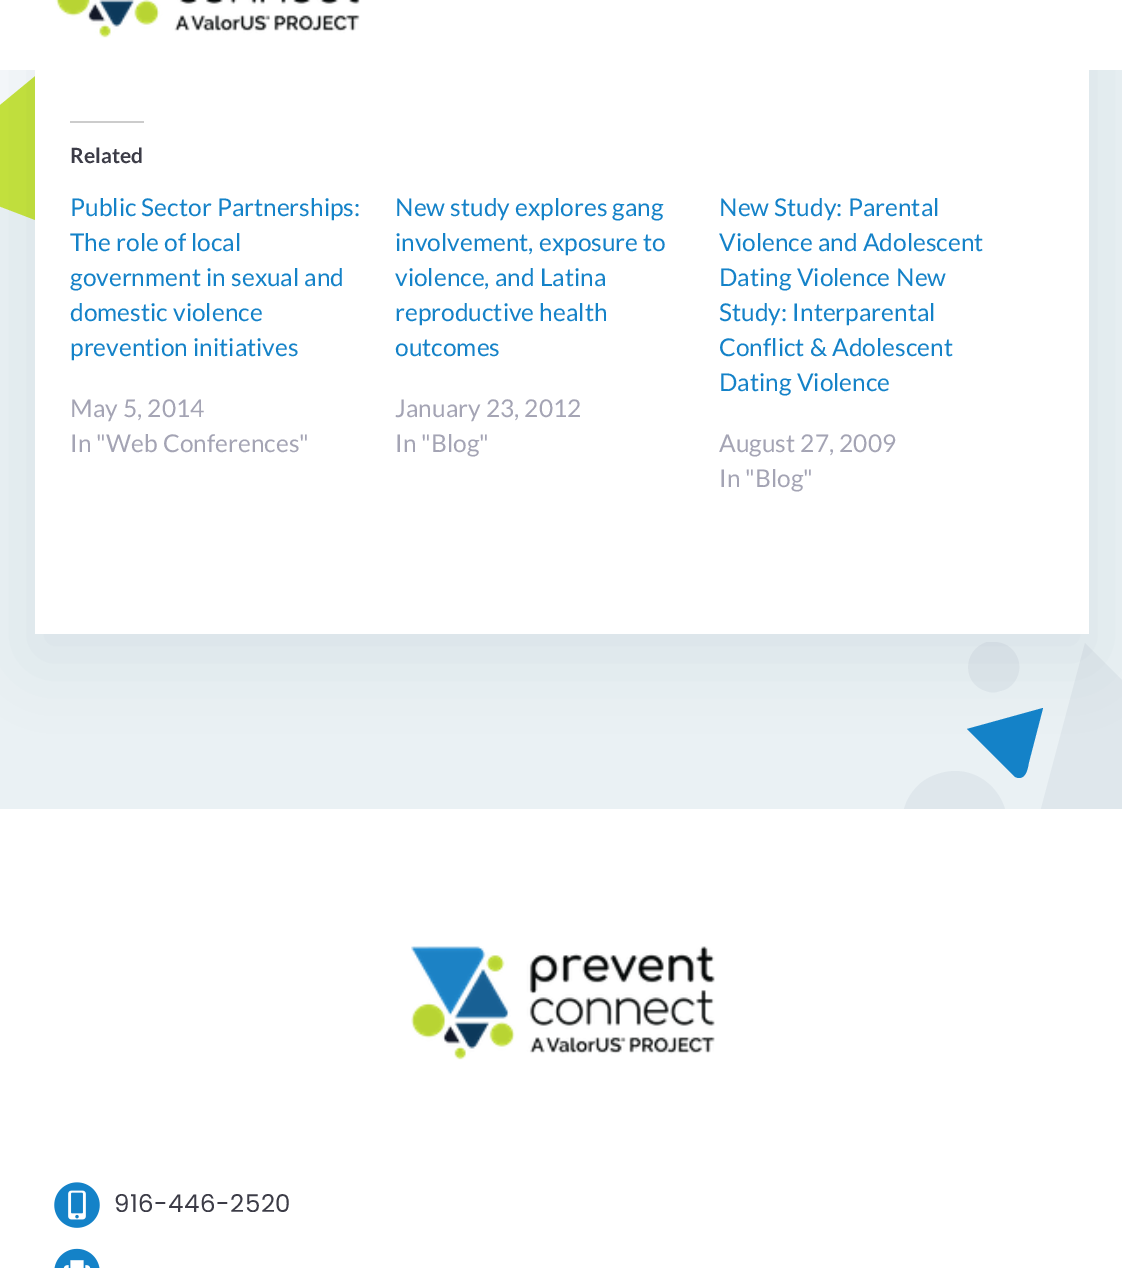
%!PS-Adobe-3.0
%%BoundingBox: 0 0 1122 1268
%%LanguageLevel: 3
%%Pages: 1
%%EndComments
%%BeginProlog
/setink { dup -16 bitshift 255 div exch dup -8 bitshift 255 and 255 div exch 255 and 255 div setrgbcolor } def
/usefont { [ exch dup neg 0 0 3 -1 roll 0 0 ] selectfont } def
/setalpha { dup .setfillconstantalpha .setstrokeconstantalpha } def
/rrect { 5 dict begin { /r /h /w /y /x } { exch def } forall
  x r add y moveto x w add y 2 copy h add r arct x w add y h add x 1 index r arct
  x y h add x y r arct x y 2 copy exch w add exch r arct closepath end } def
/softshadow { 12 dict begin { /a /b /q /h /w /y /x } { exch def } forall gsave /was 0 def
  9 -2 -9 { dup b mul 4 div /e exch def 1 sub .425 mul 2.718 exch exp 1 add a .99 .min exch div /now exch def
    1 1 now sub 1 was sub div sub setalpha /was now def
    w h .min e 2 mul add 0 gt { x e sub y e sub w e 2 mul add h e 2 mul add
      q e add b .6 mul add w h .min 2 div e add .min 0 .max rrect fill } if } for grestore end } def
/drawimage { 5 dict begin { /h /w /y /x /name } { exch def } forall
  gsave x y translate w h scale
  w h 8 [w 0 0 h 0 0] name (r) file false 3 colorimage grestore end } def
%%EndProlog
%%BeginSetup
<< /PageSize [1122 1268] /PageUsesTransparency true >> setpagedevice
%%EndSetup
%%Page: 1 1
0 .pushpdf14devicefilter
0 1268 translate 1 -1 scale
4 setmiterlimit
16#F7F9FC setink
0 0 1122 1268 rectfill
16#EAF1F4 setink
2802 -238 moveto 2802 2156 lineto -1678 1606 lineto -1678 312 lineto closepath fill
16#C5E33D setink
-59 184 moveto -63 183 -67 179 -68 175 curveto -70 168 -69 161 -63 157 curveto 56 59 lineto 85 239 lineto closepath fill
16#DFE7EC setink
1000 691 moveto 1006 690 1011 687 1015 681 curveto 1026 665 1015 642 994 642 curveto 987 642 lineto 962 650 962 684 986 691 curveto 991 693 995 693 1000 691 curveto closepath fill
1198 795 moveto 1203 794 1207 790 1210 785 curveto 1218 767 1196 754 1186 744 curveto 1085 643 lineto 1033 839 lineto closepath fill
969 875 moveto 983 870 995 860 1002 846 curveto 1021 806 984 761 941 773 curveto 930 776 921 781 914 790 curveto 902 804 899 824 905 841 curveto 907 848 911 853 916 859 curveto 930 874 949 880 969 875 curveto closepath fill
16#1482C8 setink
1014 776 moveto 1015 777 1017 778 1019 778 curveto 1027 778 1028 766 1029 762 curveto 1043 708 lineto 967 729 lineto closepath fill
16#11395B setink
35 -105 1054 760 0 35 0.08 softshadow
16#FFFFFF setink
0 0 1122 70 rectfill
(img1.raw) 55 0 305 38 drawimage
35 70 1054 564 rectfill
16#CCCCCC setink
70 121 74 2 rectfill
/Lato-Bold 21 usefont
16#3C3C47 setink
70 163 moveto (Related) show
/Lato-Regular 24.5 usefont
16#1482C8 setink
70 216 moveto 0.5 0 32 (Public Sector Partnerships:) widthshow
70 251 moveto 0.5 0 32 (The role of local) widthshow
70 286 moveto 0.5 0 32 (government in sexual and) widthshow
70 321 moveto 0.5 0 32 (domestic violence) widthshow
70 356 moveto 0.5 0 32 (prevention initiatives) widthshow
16#A4A4B4 setink
70 417 moveto 0.5 0 32 (May 5, 2014) widthshow
70 452 moveto 0.5 0 32 (In "Web Conferences") widthshow
16#1482C8 setink
395 216 moveto 0.5 0 32 (New study explores gang) widthshow
395 251 moveto 0.5 0 32 (involvement, exposure to) widthshow
395 286 moveto 0.5 0 32 (violence, and Latina) widthshow
395 321 moveto 0.5 0 32 (reproductive health) widthshow
395 356 moveto (outcomes) show
16#A4A4B4 setink
395 417 moveto 0.5 0 32 (January 23, 2012) widthshow
395 452 moveto 0.5 0 32 (In "Blog") widthshow
16#1482C8 setink
719 216 moveto 0.5 0 32 (New Study: Parental) widthshow
719 251 moveto 0.5 0 32 (Violence and Adolescent) widthshow
719 286 moveto 0.5 0 32 (Dating Violence) widthshow
896 286 moveto (New) show
719 321 moveto 0.5 0 32 (Study: Interparental) widthshow
719 356 moveto 0.5 0 32 (Conflict & Adolescent) widthshow
719 391 moveto 0.5 0 32 (Dating Violence) widthshow
16#A4A4B4 setink
719 452 moveto 0.5 0 32 (August 27, 2009) widthshow
719 487 moveto 0.5 0 32 (In "Blog") widthshow
16#FFFFFF setink
0 809 1122 459 rectfill
(img2.raw) 411 946 304 114 drawimage
(img3.raw) 54 1182 46 46 drawimage
/Poppins-Regular 24.5 usefont
16#3C3C47 setink
114 1212 moveto 0.5 0 (916-446-2520) ashow
(img4.raw) 54 1248 46 20 drawimage
.poppdf14devicefilter showpage
%%EOF
